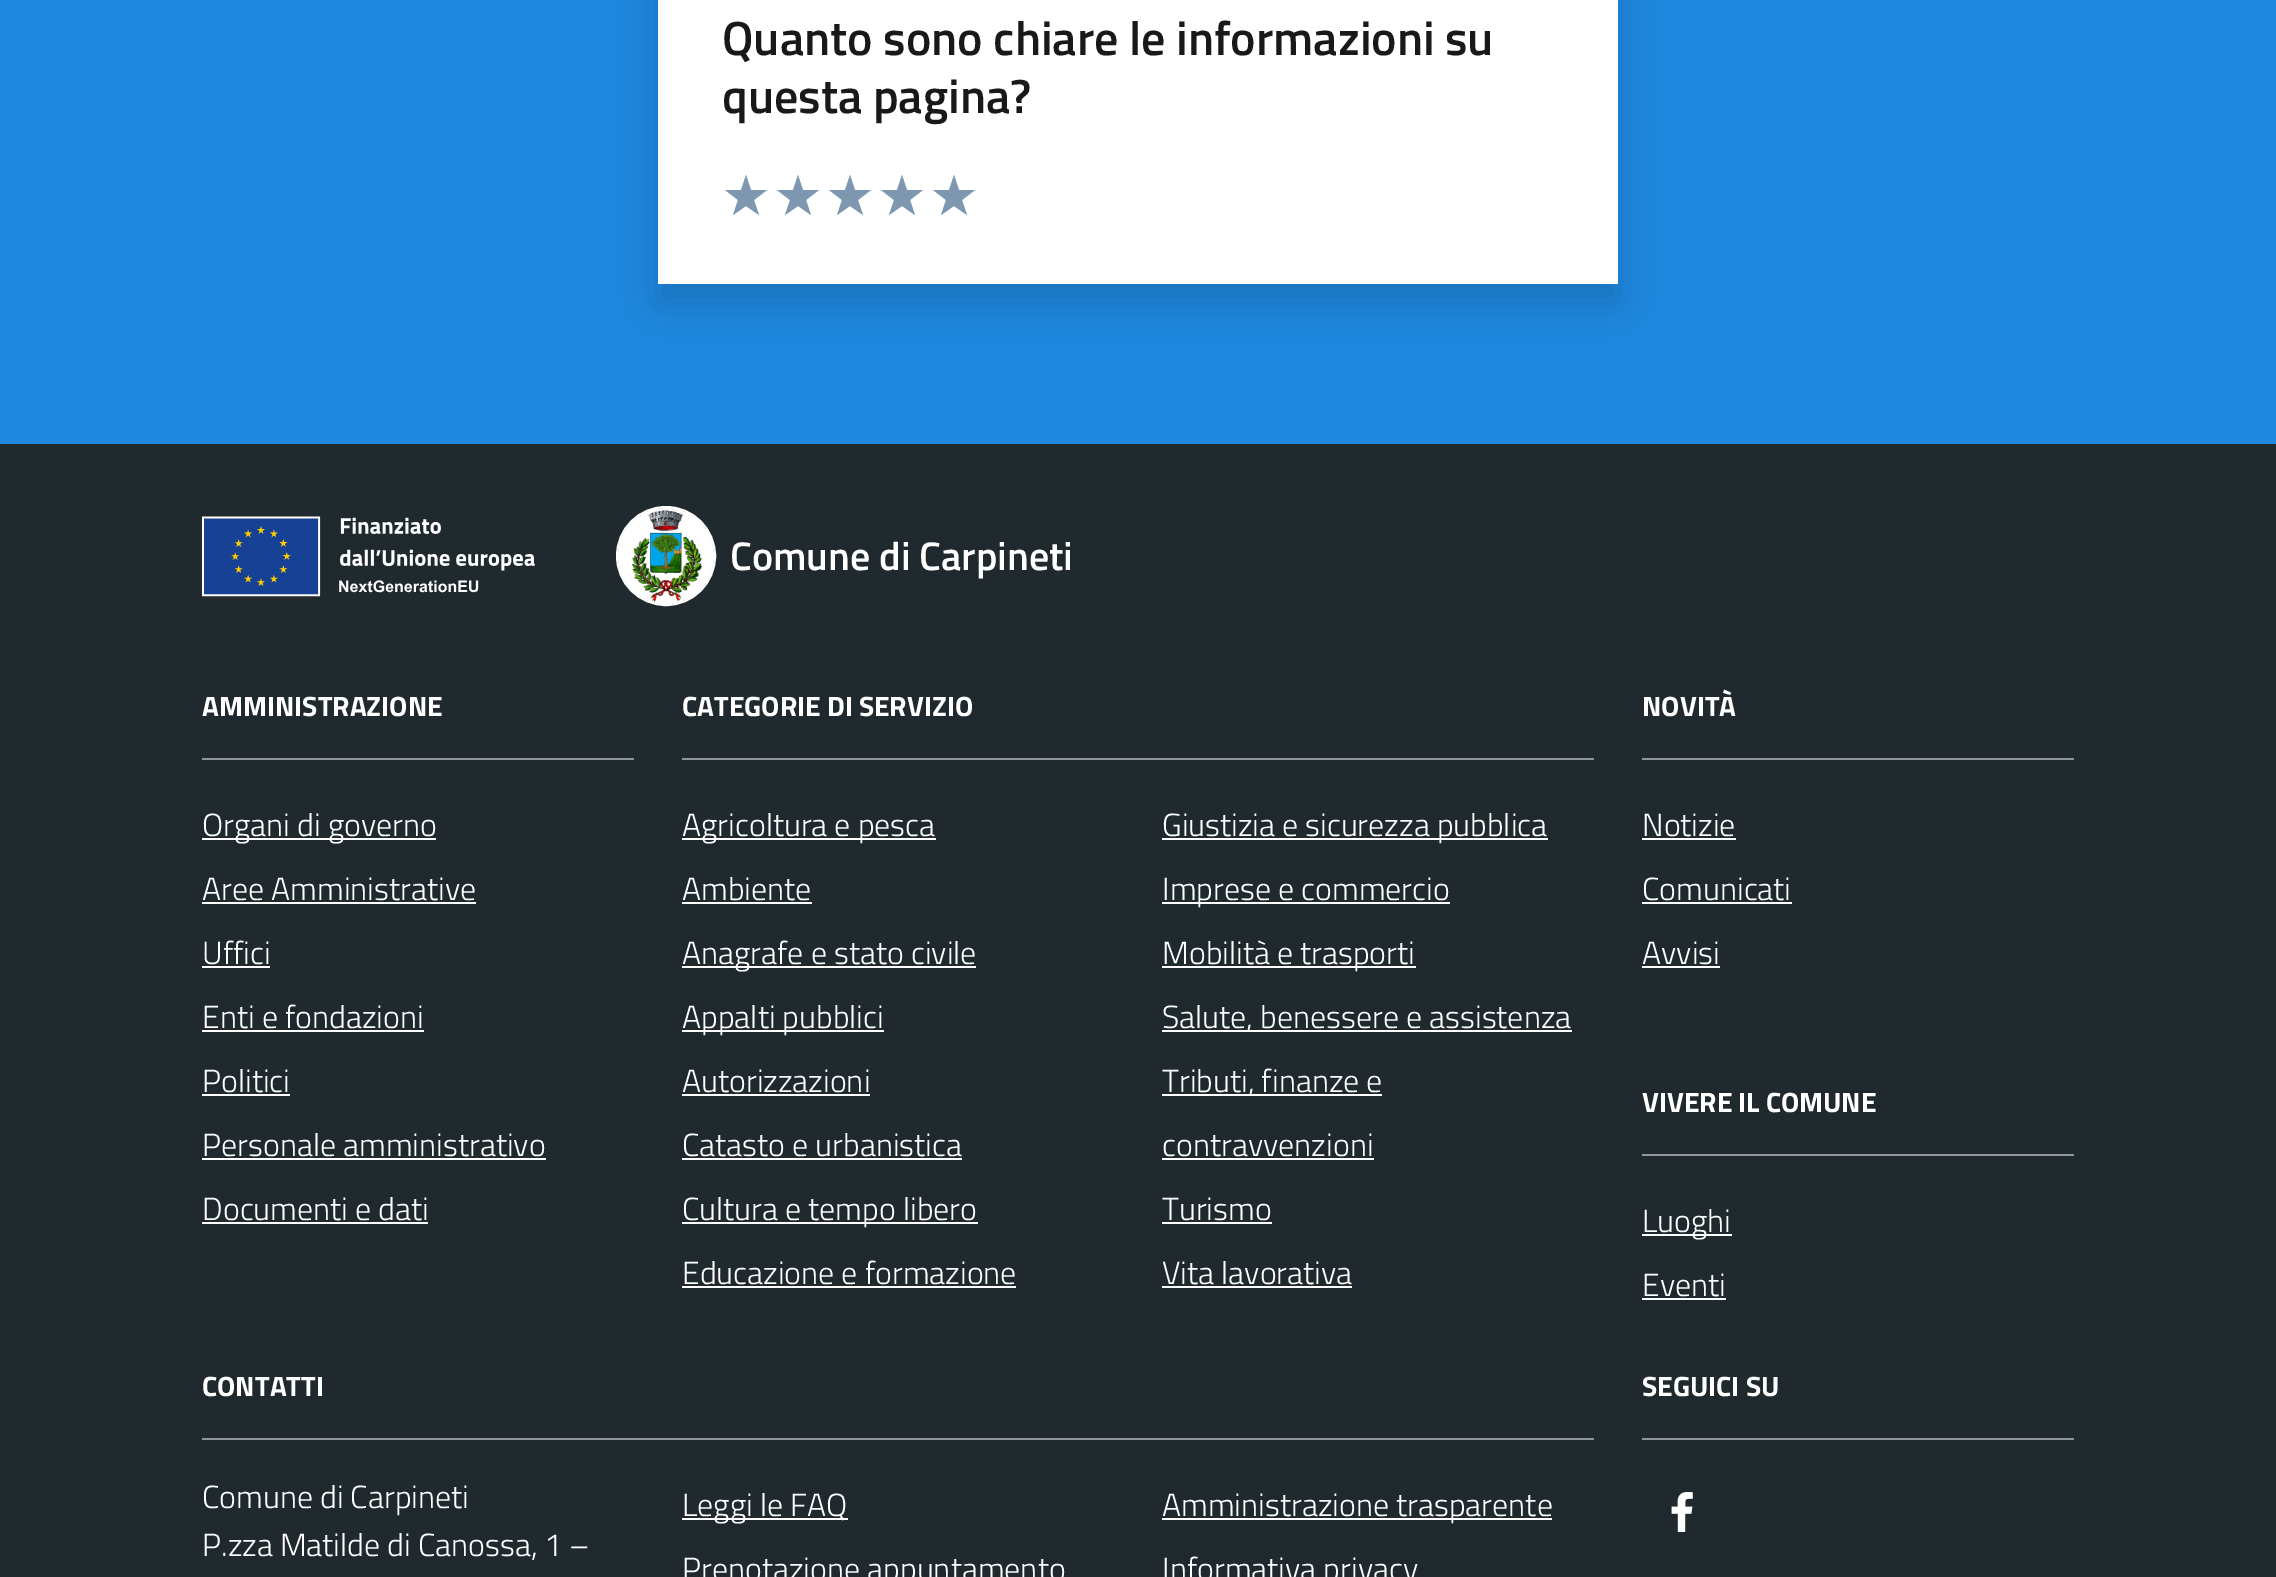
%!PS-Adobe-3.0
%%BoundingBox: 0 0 2276 1577
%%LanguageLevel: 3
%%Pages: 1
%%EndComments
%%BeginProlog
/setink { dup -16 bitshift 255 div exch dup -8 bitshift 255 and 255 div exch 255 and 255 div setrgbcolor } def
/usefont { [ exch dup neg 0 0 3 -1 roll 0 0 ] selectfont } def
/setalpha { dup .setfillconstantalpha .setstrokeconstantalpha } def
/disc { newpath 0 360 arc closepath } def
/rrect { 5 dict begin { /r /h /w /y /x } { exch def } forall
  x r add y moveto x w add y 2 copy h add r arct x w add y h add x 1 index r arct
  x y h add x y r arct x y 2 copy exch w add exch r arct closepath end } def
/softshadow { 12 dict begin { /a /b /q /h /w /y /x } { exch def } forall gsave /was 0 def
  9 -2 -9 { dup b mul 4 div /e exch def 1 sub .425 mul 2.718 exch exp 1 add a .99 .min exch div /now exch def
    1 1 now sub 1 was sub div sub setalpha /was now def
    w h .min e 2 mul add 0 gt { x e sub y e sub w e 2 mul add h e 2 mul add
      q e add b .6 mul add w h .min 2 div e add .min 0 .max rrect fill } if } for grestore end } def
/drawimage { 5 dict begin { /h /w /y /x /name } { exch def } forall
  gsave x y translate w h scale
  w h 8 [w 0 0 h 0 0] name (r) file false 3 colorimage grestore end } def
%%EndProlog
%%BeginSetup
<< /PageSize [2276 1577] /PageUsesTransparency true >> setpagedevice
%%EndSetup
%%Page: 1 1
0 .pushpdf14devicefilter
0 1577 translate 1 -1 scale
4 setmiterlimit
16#1D88DE setink
0 0 2276 1577 rectfill
16#000000 setink
658 -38 960 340 0 18 0.15 softshadow
16#FFFFFF setink
658 0 960 284 rectfill
/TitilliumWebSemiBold-SemiBold 48 usefont
16#191919 setink
722 55 moveto (Quanto sono chiare le informazioni su) show
722 113 moveto (questa pagina?) show
16#7D97B0 setink
746 175 moveto 741 190 lineto 725 190 lineto 738 200 lineto 733 215 lineto 746 206 lineto 759 215 lineto 754 200 lineto 767 190 lineto 751 190 lineto closepath fill
798 175 moveto 793 190 lineto 777 190 lineto 790 200 lineto 785 215 lineto 798 206 lineto 811 215 lineto 806 200 lineto 819 190 lineto 803 190 lineto closepath fill
850 175 moveto 845 190 lineto 829 190 lineto 842 200 lineto 837 215 lineto 850 206 lineto 863 215 lineto 858 200 lineto 871 190 lineto 855 190 lineto closepath fill
902 175 moveto 897 190 lineto 881 190 lineto 894 200 lineto 889 215 lineto 902 206 lineto 915 215 lineto 910 200 lineto 923 190 lineto 907 190 lineto closepath fill
954 175 moveto 949 190 lineto 933 190 lineto 946 200 lineto 941 215 lineto 954 206 lineto 967 215 lineto 962 200 lineto 975 190 lineto 959 190 lineto closepath fill
16#202A2E setink
0 444 2276 1133 rectfill
(img1.raw) 202 516 333 81 drawimage
(img2.raw) 618 508 96 96 drawimage
16#FFFFFF setink
2 setlinewidth
666 556 49 disc stroke
/TitilliumWebSemiBold-SemiBold 40 usefont
730 570 moveto (Comune di Carpineti) show
16#909597 setink
202 758 432 2 rectfill
/TitilliumWeb-Bold 28 usefont
16#FFFFFF setink
202 716 moveto (AMMINISTRAZIONE) show
202 838 234 2 rectfill
/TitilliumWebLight-Light 32 usefont
202 836 moveto (Organi di governo) show
202 900 moveto (Aree Amministrative) show
202 902 274 2 rectfill
202 964 moveto (Uffici) show
202 966 68 2 rectfill
202 1028 moveto (Enti e fondazioni) show
202 1030 222 2 rectfill
202 1092 moveto (Politici) show
202 1094 88 2 rectfill
202 1156 moveto (Personale amministrativo) show
202 1158 344 2 rectfill
202 1220 moveto (Documenti e dati) show
202 1222 226 2 rectfill
16#909597 setink
682 758 912 2 rectfill
/TitilliumWeb-Bold 28 usefont
16#FFFFFF setink
682 716 moveto (CATEGORIE DI SERVIZIO) show
682 838 254 2 rectfill
/TitilliumWebLight-Light 32 usefont
682 836 moveto (Agricoltura e pesca) show
682 900 moveto (Ambiente) show
682 902 130 2 rectfill
682 966 294 2 rectfill
682 964 moveto (Anagrafe e stato civile) show
682 1030 202 2 rectfill
682 1028 moveto (Appalti pubblici) show
682 1092 moveto (Autorizzazioni) show
682 1094 188 2 rectfill
682 1156 moveto (Catasto e urbanistica) show
682 1158 280 2 rectfill
682 1222 296 2 rectfill
682 1220 moveto (Cultura e tempo libero) show
682 1284 moveto (Educazione e formazione) show
682 1286 334 2 rectfill
1162 838 386 2 rectfill
1162 836 moveto (Giustizia e sicurezza pubblica) show
1162 902 288 2 rectfill
1162 900 moveto (Imprese e commercio) show
1162 966 254 2 rectfill
1162 964 moveto (Mobilità e trasporti) show
1162 1030 410 2 rectfill
1162 1028 moveto (Salute, benessere e assistenza) show
1162 1094 220 2 rectfill
1162 1092 moveto (Tributi, finanze e) show
1162 1156 moveto (contravvenzioni) show
1162 1158 212 2 rectfill
1162 1220 moveto (Turismo) show
1162 1222 110 2 rectfill
1162 1284 moveto (Vita lavorativa) show
1162 1286 190 2 rectfill
16#909597 setink
1642 758 432 2 rectfill
/TitilliumWeb-Bold 28 usefont
16#FFFFFF setink
1642 716 moveto (NOVITÀ) show
/TitilliumWebLight-Light 32 usefont
1642 836 moveto (Notizie) show
1642 838 94 2 rectfill
1642 900 moveto (Comunicati) show
1642 902 150 2 rectfill
1642 964 moveto (Avvisi) show
1642 966 78 2 rectfill
16#909597 setink
1642 1154 432 2 rectfill
/TitilliumWeb-Bold 28 usefont
16#FFFFFF setink
1642 1112 moveto (VIVERE IL COMUNE) show
1642 1234 90 2 rectfill
/TitilliumWebLight-Light 32 usefont
1642 1232 moveto (Luoghi) show
1642 1296 moveto (Eventi) show
1642 1298 84 2 rectfill
16#909597 setink
202 1438 1392 2 rectfill
/TitilliumWeb-Bold 28 usefont
16#FFFFFF setink
202 1396 moveto (CONTATTI) show
/TitilliumWebLight-Light 32 usefont
202 1508 moveto (Comune di Carpineti) show
202 1556 moveto (P.zza Matilde di Canossa, 1 –) show
682 1518 166 2 rectfill
682 1516 moveto (Leggi le FAQ) show
682 1580 moveto (Prenotazione appuntamento) show
1162 1518 390 2 rectfill
1162 1516 moveto (Amministrazione trasparente) show
1162 1580 moveto (Informativa privacy) show
16#909597 setink
1642 1438 432 2 rectfill
/TitilliumWeb-Bold 28 usefont
16#FFFFFF setink
1642 1396 moveto (SEGUICI SU) show
(img3.raw) 1671 1492 22 40 drawimage
.poppdf14devicefilter showpage
%%EOF
